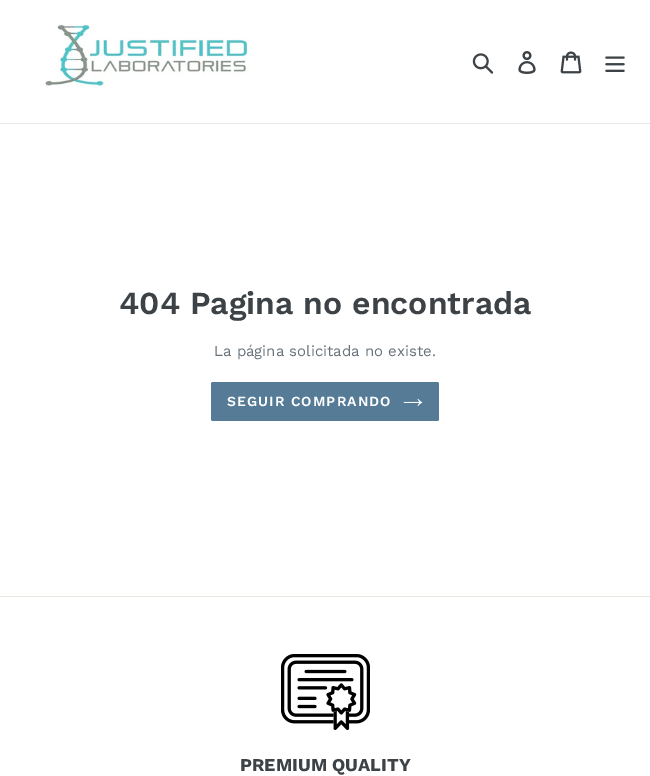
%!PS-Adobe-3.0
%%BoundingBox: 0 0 650 776
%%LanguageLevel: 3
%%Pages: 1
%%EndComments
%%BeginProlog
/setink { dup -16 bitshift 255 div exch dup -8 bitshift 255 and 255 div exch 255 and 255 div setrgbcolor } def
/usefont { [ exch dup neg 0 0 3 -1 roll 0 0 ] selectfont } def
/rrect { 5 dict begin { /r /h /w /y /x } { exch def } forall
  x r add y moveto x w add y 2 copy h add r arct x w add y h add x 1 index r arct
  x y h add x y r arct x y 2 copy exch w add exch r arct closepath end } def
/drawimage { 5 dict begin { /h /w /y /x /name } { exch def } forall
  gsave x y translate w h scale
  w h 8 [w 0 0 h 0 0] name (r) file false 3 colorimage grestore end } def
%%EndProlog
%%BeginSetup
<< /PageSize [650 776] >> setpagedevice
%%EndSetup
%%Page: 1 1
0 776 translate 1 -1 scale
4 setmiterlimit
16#FFFFFF setink
0 0 650 776 rectfill
16#E8E9EB setink
0 123 650 1 rectfill
(img1.raw) 44 24 206 63 drawimage
(img2.raw) 472 53 22 21 drawimage
(img3.raw) 518 51 18 23 drawimage
(img4.raw) 560 51 22 23 drawimage
(img5.raw) 605 56 20 16 drawimage
/WorkSans-SemiBold 32 usefont
16#3D4246 setink
119 314 moveto (404 Pagina no encontrada) show
/WorkSans-Regular 15 usefont
16#69727B setink
214 356 moveto (La página solicitada no existe.) show
16#557B97 setink
211 382 228 39 2 rrect fill
/WorkSans-SemiBold 14 usefont
16#FFFFFF setink
227 406 moveto 1.1 0 (SEGUIR COMPRANDO) ashow
(img6.raw) 403 398 20 8 drawimage
16#E8E8E1 setink
0 596 650 1 rectfill
(img7.raw) 281 654 89 76 drawimage
/WorkSans-Bold 18 usefont
16#3D4246 setink
240 771 moveto (PREMIUM QUALITY) show
showpage
%%EOF
